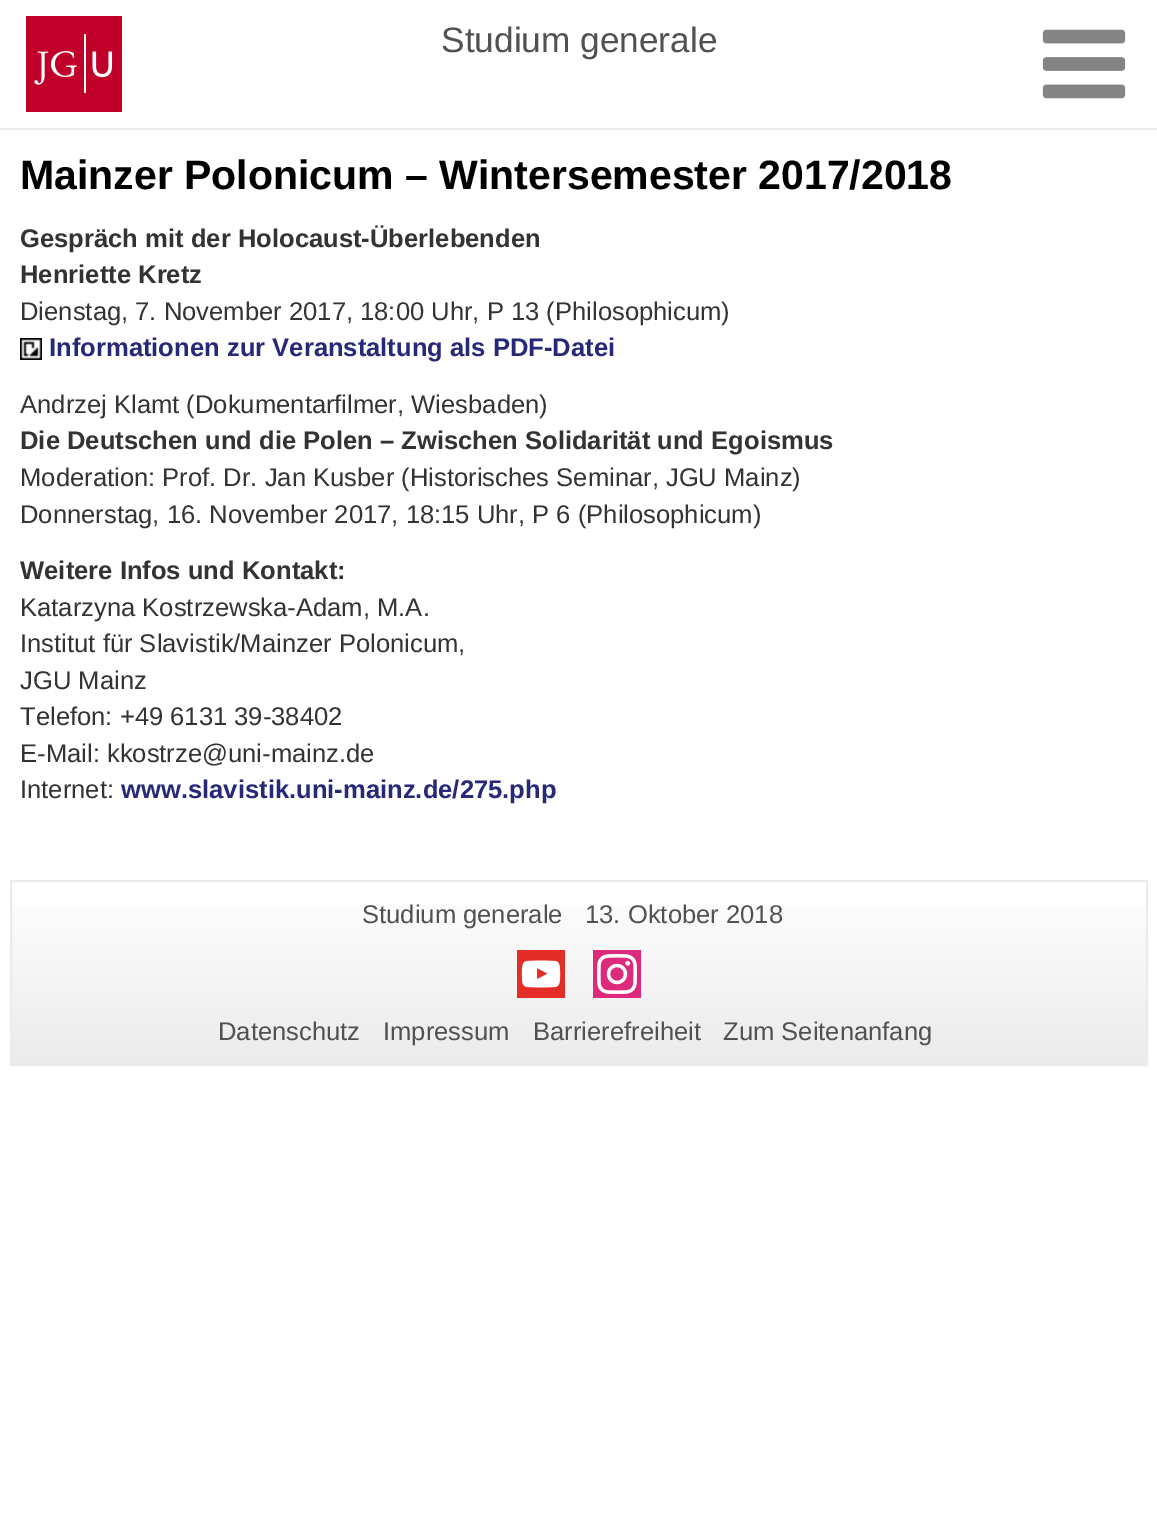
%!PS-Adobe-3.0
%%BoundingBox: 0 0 1157 1529
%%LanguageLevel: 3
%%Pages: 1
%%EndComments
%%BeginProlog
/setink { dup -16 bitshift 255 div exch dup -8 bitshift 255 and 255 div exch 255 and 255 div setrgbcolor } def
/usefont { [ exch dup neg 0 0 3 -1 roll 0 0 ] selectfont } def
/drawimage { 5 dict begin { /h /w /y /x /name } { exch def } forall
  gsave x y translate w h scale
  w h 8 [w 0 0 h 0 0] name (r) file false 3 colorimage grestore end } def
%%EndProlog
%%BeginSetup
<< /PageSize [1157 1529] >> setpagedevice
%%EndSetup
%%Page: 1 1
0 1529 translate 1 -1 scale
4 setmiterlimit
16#FFFFFF setink
0 0 1157 1529 rectfill
16#EBEBEB setink
0 128 1157 2 rectfill
(img1.raw) 26 16 96 96 drawimage
/LiberationSans-Regular 35.25 usefont
16#515151 setink
441 52 moveto (Studium generale) show
(img2.raw) 1042 29 84 70 drawimage
/LiberationSans-Bold 41 usefont
16#000000 setink
20 189 moveto (Mainzer Polonicum – Wintersemester 2017/2018) show
/LiberationSans-Bold 25.6 usefont
16#333333 setink
20 247 moveto (Gespräch mit der Holocaust-Überlebenden) show
20 283 moveto (Henriette Kretz) show
/LiberationSans-Regular 25.6 usefont
20 320 moveto (Dienstag, 7. November 2017, 18:00 Uhr, P 13 \(Philosophicum\)) show
(img3.raw) 20 338 22 22 drawimage
/LiberationSans-Bold 25.6 usefont
16#282879 setink
49 356 moveto (Informationen zur Veranstaltung als PDF-Datei) show
/LiberationSans-Regular 25.6 usefont
16#333333 setink
20 413 moveto (Andrzej Klamt \(Dokumentarfilmer, Wiesbaden\)) show
/LiberationSans-Bold 25.6 usefont
20 449 moveto (Die Deutschen und die Polen – Zwischen Solidarität und Egoismus) show
/LiberationSans-Regular 25.6 usefont
20 486 moveto (Moderation: Prof. Dr. Jan Kusber \(Historisches Seminar, JGU Mainz\)) show
20 523 moveto (Donnerstag, 16. November 2017, 18:15 Uhr, P 6 \(Philosophicum\)) show
/LiberationSans-Bold 25.6 usefont
20 579 moveto (Weitere Infos und Kontakt:) show
/LiberationSans-Regular 25.6 usefont
[
    [(Katarzyna Kostrzewska-Adam, M.A.) 20 616]
    [(Institut für Slavistik/Mainzer Polonicum,) 20 652]
    [(JGU Mainz) 20 689]
    [(Telefon: +49 6131 39-38402) 20 725]
    [(E-Mail: kkostrze@uni-mainz.de) 20 762]
    [(Internet:) 20 798]
] { aload pop moveto show } forall
/LiberationSans-Bold 25.6 usefont
16#282879 setink
121 798 moveto (www.slavistik.uni-mainz.de/275.php) show
gsave 12 905 moveto 1146 905 lineto 1146 1064 lineto 12 1064 lineto closepath clip newpath
<< /ShadingType 2 /ColorSpace /DeviceRGB /Coords [579 1064 579 882] /Extend [true true] /Function << /FunctionType 2 /Domain [0 1] /C0 [0.922 0.922 0.922] /C1 [1 1 1] /N 1 >> >> shfill grestore
16#EBEBEB setink
2 setlinewidth
11 881 1136 184 rectstroke
/LiberationSans-Regular 25.6 usefont
16#515151 setink
362 923 moveto (Studium generale) show
585 923 moveto (13. Oktober 2018) show
(img4.raw) 517 950 48 48 drawimage
(img5.raw) 593 950 48 48 drawimage
[
    [(Datenschutz) 218 1040]
    [(Impressum) 383 1040]
    [(Barrierefreiheit) 533 1040]
    [(Zum Seitenanfang) 723 1040]
] { aload pop moveto show } forall
showpage
%%EOF
